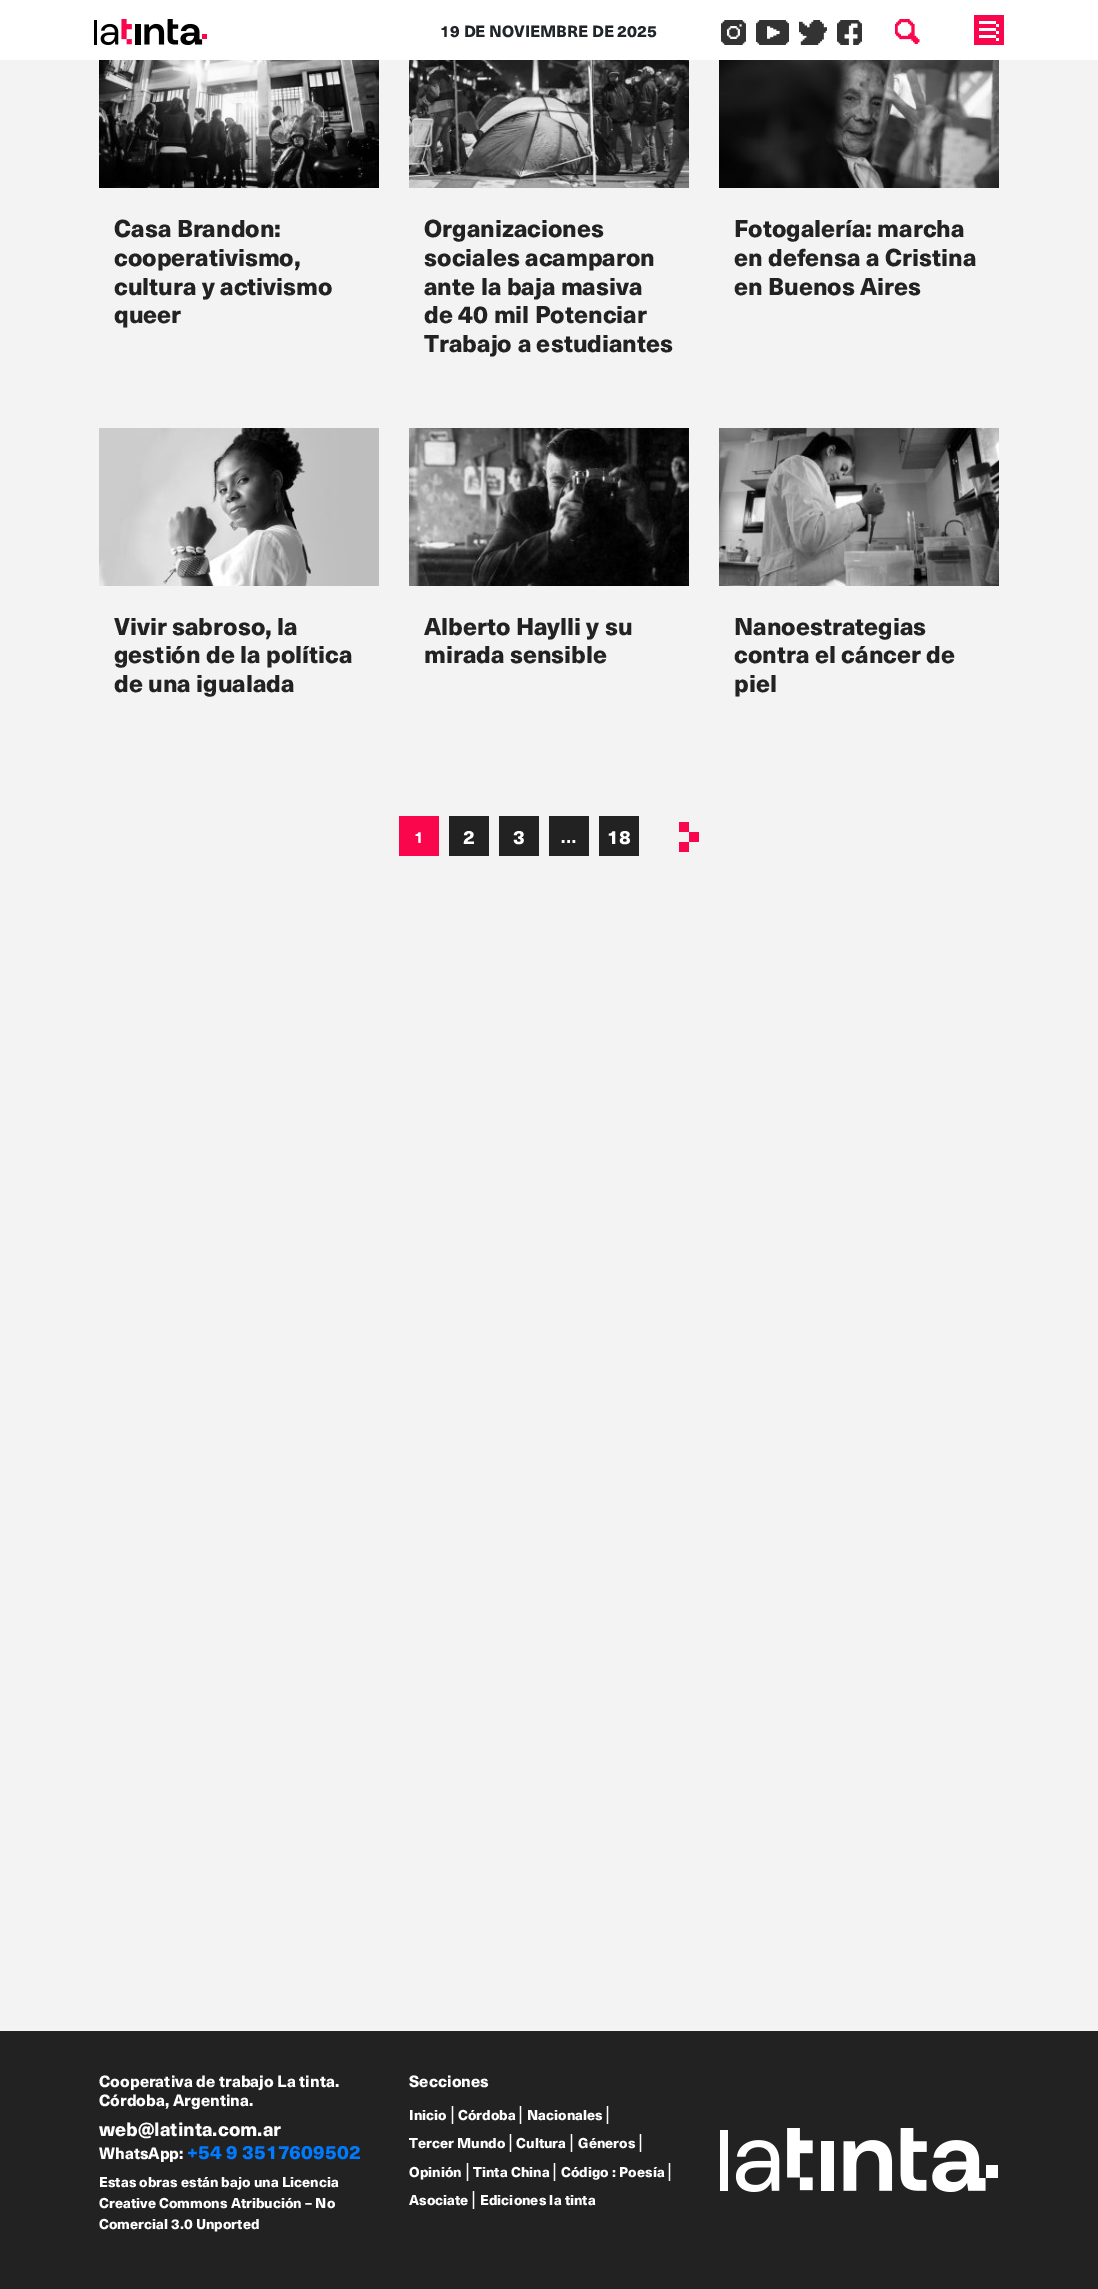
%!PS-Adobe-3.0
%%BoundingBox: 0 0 1098 2289
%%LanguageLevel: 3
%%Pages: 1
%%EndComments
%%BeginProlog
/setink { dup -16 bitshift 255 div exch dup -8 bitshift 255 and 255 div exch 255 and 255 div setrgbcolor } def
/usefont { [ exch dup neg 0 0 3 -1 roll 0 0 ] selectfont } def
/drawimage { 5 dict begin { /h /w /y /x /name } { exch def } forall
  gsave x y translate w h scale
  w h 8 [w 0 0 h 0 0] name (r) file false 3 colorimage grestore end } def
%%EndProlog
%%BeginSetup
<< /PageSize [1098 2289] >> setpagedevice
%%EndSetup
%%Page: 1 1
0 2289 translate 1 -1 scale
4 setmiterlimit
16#F3F3F3 setink
0 0 1098 2289 rectfill
16#FFFFFF setink
0 0 1098 60 rectfill
(img1.raw) 94 19 113 26 drawimage
/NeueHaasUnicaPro-Black 16 usefont
16#212529 setink
440 37 moveto (19 DE NOVIEMBRE DE 2025) show
(img2.raw) 721 20 25 25 drawimage
(img3.raw) 756 20 33 25 drawimage
(img4.raw) 799 20 28 25 drawimage
(img5.raw) 837 20 25 25 drawimage
(img6.raw) 895 19 25 25 drawimage
(img7.raw) 974 15 30 30 drawimage
(img8.raw) 99 60 280 128 drawimage
/NeueHaasUnicaPro-Black 24 usefont
16#222222 setink
[
    [(Casa Brandon:) 114 237]
    [(cooperativismo,) 114 266]
    [(cultura y activismo) 114 295]
    [(queer) 114 323]
] { aload pop moveto show } forall
(img9.raw) 409 60 280 128 drawimage
[
    [(Organizaciones) 424 237]
    [(sociales acamparon) 424 266]
    [(ante la baja masiva) 424 295]
    [(de 40 mil Potenciar) 424 323]
    [(Trabajo a estudiantes) 424 352]
] { aload pop moveto show } forall
(img10.raw) 719 60 280 128 drawimage
[
    [(Fotogalería: marcha) 734 237]
    [(en defensa a Cristina) 734 266]
    [(en Buenos Aires) 734 295]
] { aload pop moveto show } forall
(img11.raw) 99 428 280 158 drawimage
[
    [(Vivir sabroso, la) 114 635]
    [(gestión de la política) 114 663]
    [(de una igualada) 114 692]
] { aload pop moveto show } forall
(img12.raw) 409 428 280 158 drawimage
424 635 moveto (Alberto Haylli y su) show
424 663 moveto (mirada sensible) show
(img13.raw) 719 428 280 158 drawimage
[
    [(Nanoestrategias) 734 635]
    [(contra el cáncer de) 734 663]
    [(piel) 734 692]
] { aload pop moveto show } forall
16#FA064C setink
399 816 40 40 rectfill
/NeueHaasUnicaPro-Black 16 usefont
16#FFFFFF setink
414 843 moveto (1) show
16#222222 setink
449 816 40 40 rectfill
/NeueHaasUnicaPro-Black 19 usefont
16#FFFFFF setink
463 844 moveto (2) show
16#222222 setink
499 816 40 40 rectfill
16#FFFFFF setink
513 844 moveto (3) show
16#222222 setink
549 816 40 40 rectfill
/NeueHaasUnicaPro-Black 16 usefont
16#FFFFFF setink
561 843 moveto (…) show
16#222222 setink
599 816 40 40 rectfill
/NeueHaasUnicaPro-Black 19 usefont
16#FFFFFF setink
607 844 moveto (18) show
[
    [679 822 10 10 16#FA064C]
    [689 832 10 10 16#FA064C]
    [679 842 10 10 16#FA064C]
    [0 2031 1098 258 16#222222]
] { aload pop setink rectfill } forall
/NeueHaasUnicaPro-Black 16 usefont
16#FFFFFF setink
99 2087 moveto (Cooperativa de trabajo La tinta.) show
99 2106 moveto (Córdoba, Argentina.) show
/NeueHaasUnicaPro-Black 19 usefont
99 2136 moveto (web@latinta.com.ar) show
/NeueHaasUnicaPro-Black 16 usefont
99 2159 moveto (WhatsApp:) show
/NeueHaasUnicaPro-Black 19 usefont
16#007BFF setink
187 2159 moveto (+54 9 3517609502) show
/NeueHaasUnicaPro-Black 14 usefont
16#FFFFFF setink
[
    [(Estas obras están bajo una Licencia) 99 2187]
    [(Creative Commons Atribución – No) 99 2208]
    [(Comercial 3.0 Unported) 99 2229]
] { aload pop moveto show } forall
/NeueHaasUnicaPro-Black 16 usefont
409 2087 moveto (Secciones) show
/NeueHaasUnicaPro-Black 14 usefont
409 2120 moveto (Inicio) show
/NeueHaasUnicaPro-Regular 19 usefont
450 2120 moveto (|) show
/NeueHaasUnicaPro-Black 14 usefont
458 2120 moveto (Córdoba) show
/NeueHaasUnicaPro-Regular 19 usefont
518 2120 moveto (|) show
/NeueHaasUnicaPro-Black 14 usefont
527 2120 moveto (Nacionales) show
/NeueHaasUnicaPro-Regular 19 usefont
605 2120 moveto (|) show
/NeueHaasUnicaPro-Black 14 usefont
409 2148 moveto (Tercer Mundo) show
/NeueHaasUnicaPro-Regular 19 usefont
508 2148 moveto (|) show
/NeueHaasUnicaPro-Black 14 usefont
516 2148 moveto (Cultura) show
/NeueHaasUnicaPro-Regular 19 usefont
569 2148 moveto (|) show
/NeueHaasUnicaPro-Black 14 usefont
578 2148 moveto (Géneros) show
/NeueHaasUnicaPro-Regular 19 usefont
638 2148 moveto (|) show
/NeueHaasUnicaPro-Black 14 usefont
409 2177 moveto (Opinión) show
/NeueHaasUnicaPro-Regular 19 usefont
465 2177 moveto (|) show
/NeueHaasUnicaPro-Black 14 usefont
473 2177 moveto (Tinta China) show
/NeueHaasUnicaPro-Regular 19 usefont
552 2177 moveto (|) show
/NeueHaasUnicaPro-Black 14 usefont
561 2177 moveto (Código : Poesía) show
/NeueHaasUnicaPro-Regular 19 usefont
667 2177 moveto (|) show
/NeueHaasUnicaPro-Black 14 usefont
409 2205 moveto (Asociate) show
/NeueHaasUnicaPro-Regular 19 usefont
471 2205 moveto (|) show
/NeueHaasUnicaPro-Black 14 usefont
480 2205 moveto (Ediciones la tinta) show
(img14.raw) 720 2128 278 64 drawimage
showpage
%%EOF
